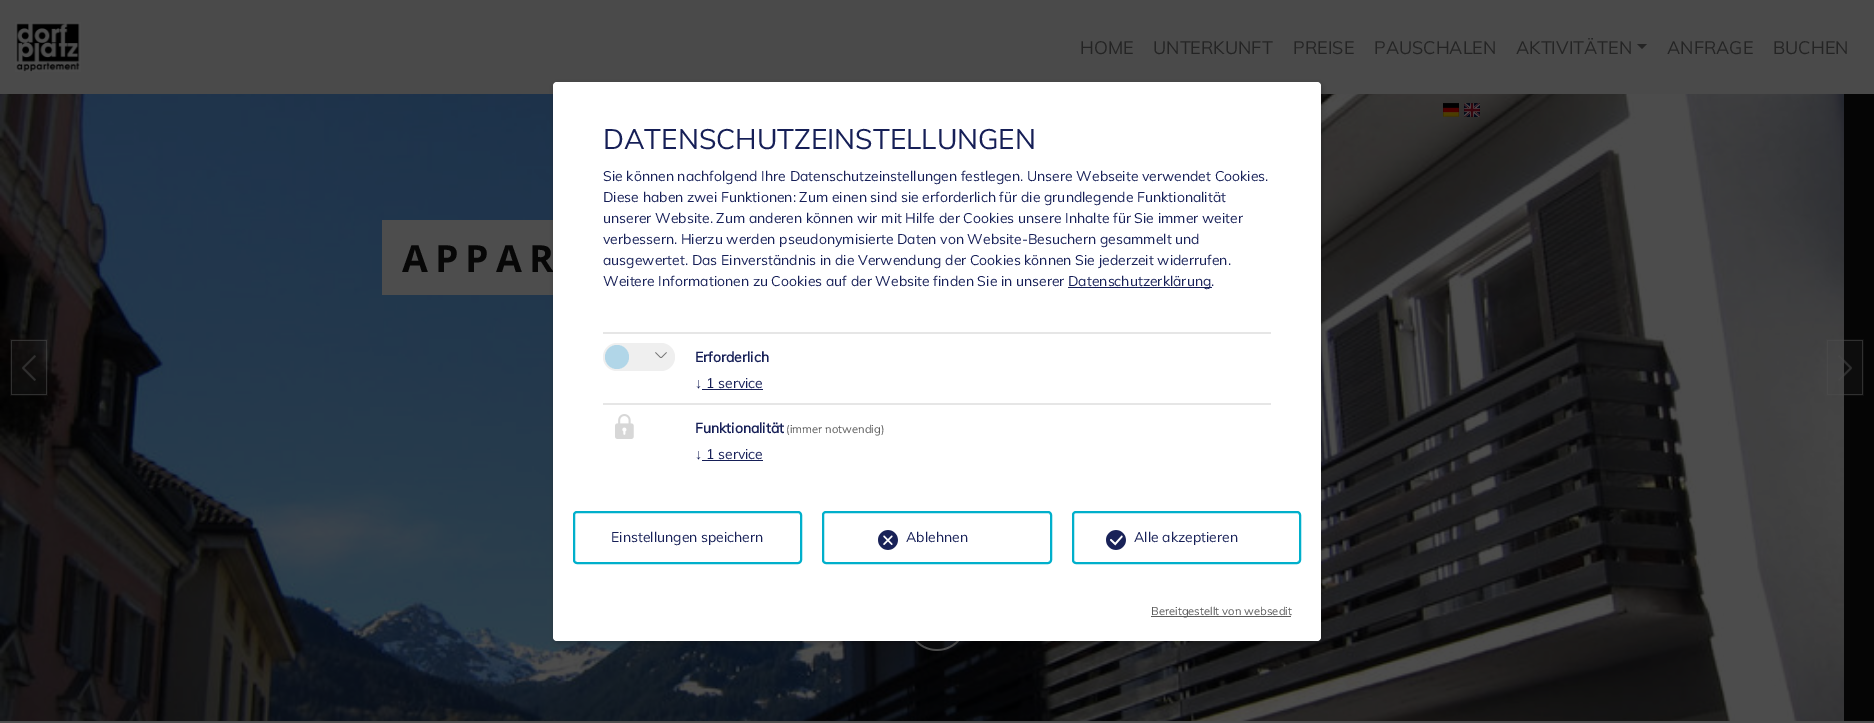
%!PS-Adobe-3.0
%%BoundingBox: 0 0 1874 723
%%LanguageLevel: 3
%%Pages: 1
%%EndComments
%%BeginProlog
/setink { dup -16 bitshift 255 div exch dup -8 bitshift 255 and 255 div exch 255 and 255 div setrgbcolor } def
/usefont { [ exch dup neg 0 0 3 -1 roll 0 0 ] selectfont } def
/setalpha { dup .setfillconstantalpha .setstrokeconstantalpha } def
/disc { newpath 0 360 arc closepath } def
/rrect { 5 dict begin { /r /h /w /y /x } { exch def } forall
  x r add y moveto x w add y 2 copy h add r arct x w add y h add x 1 index r arct
  x y h add x y r arct x y 2 copy exch w add exch r arct closepath end } def
/softshadow { 12 dict begin { /a /b /q /h /w /y /x } { exch def } forall gsave /was 0 def
  9 -2 -9 { dup b mul 4 div /e exch def 1 sub .425 mul 2.718 exch exp 1 add a .99 .min exch div /now exch def
    1 1 now sub 1 was sub div sub setalpha /was now def
    w h .min e 2 mul add 0 gt { x e sub y e sub w e 2 mul add h e 2 mul add
      q e add b .6 mul add w h .min 2 div e add .min 0 .max rrect fill } if } for grestore end } def
/drawimage { 5 dict begin { /h /w /y /x /name } { exch def } forall
  gsave x y translate w h scale
  w h 8 [w 0 0 h 0 0] name (r) file false 3 colorimage grestore end } def
%%EndProlog
%%BeginSetup
<< /PageSize [1874 723] /PageUsesTransparency true >> setpagedevice
%%EndSetup
%%Page: 1 1
0 .pushpdf14devicefilter
0 723 translate 1 -1 scale
4 setmiterlimit
16#050505 setink
0 0 1874 723 rectfill
16#4A4A4A setink
0 0 1874 94 rectfill
(img1.raw) 15 22 66 50 drawimage
/Muli-Regular 18 usefont
16#242424 setink
[
    [(HOME) 1080 54]
    [(UNTERKUNFT) 1153 54]
    [(PREISE) 1293 54]
    [(PAUSCHALEN) 1374 54]
    [(AKTIVITÄTEN) 1516 54]
] { aload pop moveto show } forall
1637 44 moveto 1647 44 lineto 1642 49 lineto closepath fill
1667 54 moveto (ANFRAGE) show
1773 54 moveto (BUCHEN) show
(img2.raw) 0 94 1844 627 drawimage
(img3.raw) 1443 103 16 14 drawimage
(img4.raw) 1464 103 16 14 drawimage
16#4D4D4D setink
382 220 171 75 rectfill
/OpenSans-Bold 37.5 usefont
16#070707 setink
402 272 moveto 7 0 (APPAR) ashow
(img5.raw) 10 339 38 57 drawimage
(img6.raw) 1826 339 38 57 drawimage
(img7.raw) 914 641 46 10 drawimage
16#000000 setink
554 84 768 559 4 2.5 0.2 softshadow
16#FFFFFF setink
553 82 768 559 4 rrect fill
/Muli-Regular 28 usefont
16#161F57 setink
603 149 moveto (DATENSCHUTZEINSTELLUNGEN) show
/Muli-Regular 14 usefont
[
    [(Sie können nachfolgend Ihre Datenschutzeinstellungen festlegen. Unsere Webseite verwendet Cookies.) 603 181]
    [(Diese haben zwei Funktionen: Zum einen sind sie erforderlich für die grundlegende Funktionalität) 603 202]
    [(unserer Website. Zum anderen können wir mit Hilfe der Cookies unsere Inhalte für Sie immer weiter) 603 223]
    [(verbessern. Hierzu werden pseudonymisierte Daten von Website-Besuchern gesammelt und) 603 244]
    [(ausgewertet. Das Einverständnis in die Verwendung der Cookies können Sie jederzeit widerrufen.) 603 265]
    [(Weitere Informationen zu Cookies auf der Website finden Sie in unserer) 603 286]
] { aload pop moveto show } forall
1068 287 144 1 rectfill
1068 286 moveto (Datenschutzerklärung.) show
16#E6E6E6 setink
603 332 668 2 rectfill
16#EFEFEF setink
603 343 72 28 14 rrect fill
16#B1D6E8 setink
617 357 12 disc fill
(img8.raw) 655 352 12 6 drawimage
/Muli-Bold 14 usefont
16#161F57 setink
695 362 moveto (Erforderlich) show
/LiberationSans-Regular 14 usefont
695 388 moveto (↓) show
/Muli-Regular 14 usefont
706 388 moveto (1 service) show
702 389 61 1 rectfill
16#E6E6E6 setink
603 403 668 2 rectfill
(img9.raw) 615 414 19 25 drawimage
/Muli-Bold 14 usefont
16#161F57 setink
695 433 moveto (Funktionalität) show
/Muli-Regular 11.25 usefont
16#5C5C5C setink
786 433 moveto (\(immer notwendig\)) show
/LiberationSans-Regular 14 usefont
16#161F57 setink
695 459 moveto (↓) show
/Muli-Regular 14 usefont
706 459 moveto (1 service) show
702 460 61 1 rectfill
16#00AFCB setink
2 setlinewidth
574 512 227 51 3 rrect stroke
16#161F57 setink
611 542 moveto (Einstellungen speichern) show
16#00AFCB setink
823 512 228 51 3 rrect stroke
(img10.raw) 878 530 20 20 drawimage
16#161F57 setink
906 542 moveto (Ablehnen) show
16#00AFCB setink
1073 512 227 51 3 rrect stroke
(img11.raw) 1106 530 20 20 drawimage
16#161F57 setink
1134 542 moveto (Alle akzeptieren) show
16#5C5C5C setink
1151 616 140 1 rectfill
/Muli-Regular 11.25 usefont
1151 615 moveto (Bereitgestellt von websedit) show
16#4D4D4D setink
0 721 1874 2 rectfill
.poppdf14devicefilter showpage
%%EOF
